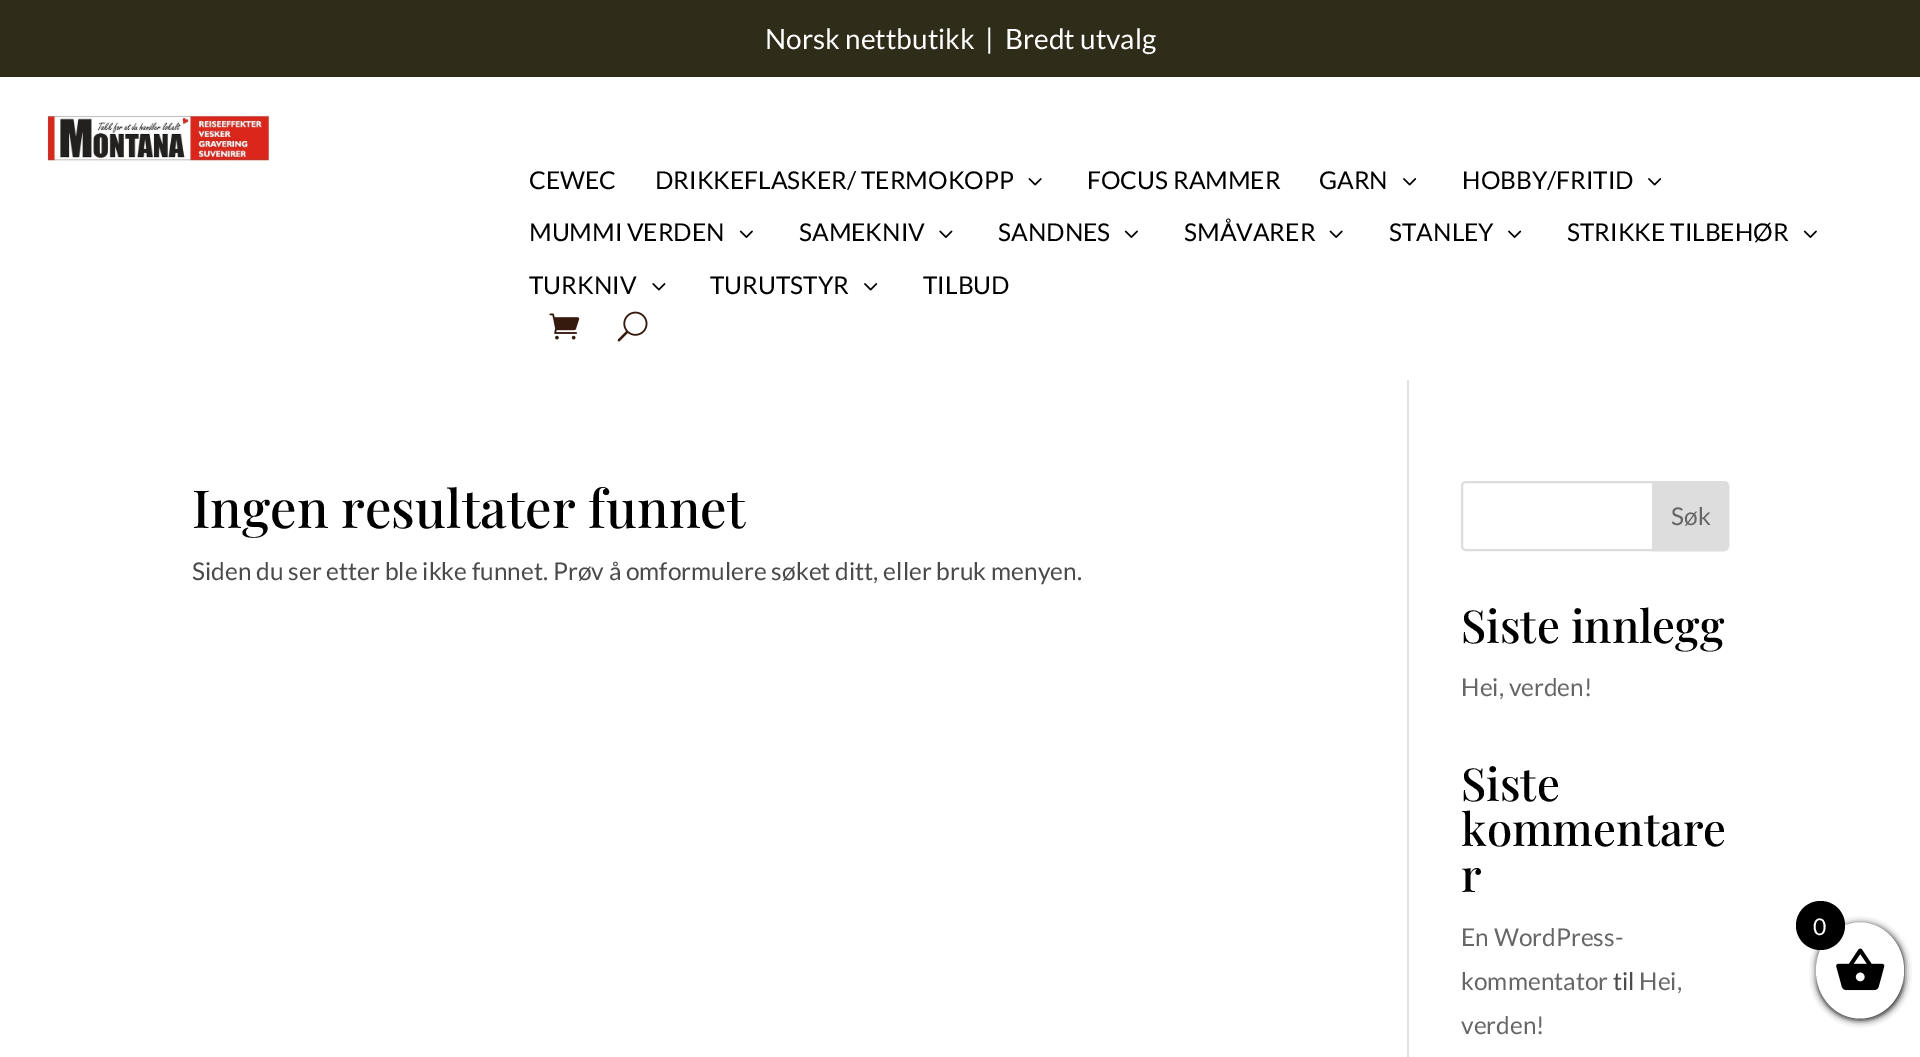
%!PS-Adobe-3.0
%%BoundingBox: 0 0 1920 1057
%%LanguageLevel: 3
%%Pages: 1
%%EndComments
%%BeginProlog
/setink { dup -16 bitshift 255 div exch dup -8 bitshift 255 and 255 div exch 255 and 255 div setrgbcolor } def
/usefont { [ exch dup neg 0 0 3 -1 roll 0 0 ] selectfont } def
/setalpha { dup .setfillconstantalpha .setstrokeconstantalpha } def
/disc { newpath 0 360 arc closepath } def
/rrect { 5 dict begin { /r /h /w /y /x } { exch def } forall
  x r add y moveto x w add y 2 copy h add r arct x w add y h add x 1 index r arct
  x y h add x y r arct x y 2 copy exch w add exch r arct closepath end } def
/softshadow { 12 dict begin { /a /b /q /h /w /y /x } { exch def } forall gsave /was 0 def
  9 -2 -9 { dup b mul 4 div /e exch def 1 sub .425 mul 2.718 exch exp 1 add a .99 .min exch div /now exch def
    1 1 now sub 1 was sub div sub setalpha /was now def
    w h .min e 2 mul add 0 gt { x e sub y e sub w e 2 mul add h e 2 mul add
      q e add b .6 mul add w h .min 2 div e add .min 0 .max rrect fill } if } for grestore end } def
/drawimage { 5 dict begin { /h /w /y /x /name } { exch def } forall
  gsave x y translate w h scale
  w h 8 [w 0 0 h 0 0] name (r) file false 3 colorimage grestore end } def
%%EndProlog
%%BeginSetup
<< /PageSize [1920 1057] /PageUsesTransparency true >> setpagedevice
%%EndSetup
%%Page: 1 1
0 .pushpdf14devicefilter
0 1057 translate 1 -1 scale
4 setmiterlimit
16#FFFFFF setink
0 0 1920 1057 rectfill
16#2F2C19 setink
0 0 1920 77 rectfill
/Lato-Regular 28 usefont
16#FFFFFF setink
765 49 moveto (Norsk nettbutikk  |  Bredt utvalg) show
(img1.raw) 47 115 223 46 drawimage
/Lato-Regular 24.5 usefont
16#000000 setink
529 189 moveto (CEWEC) show
655 189 moveto (DRIKKEFLASKER/ TERMOKOPP) show
(img2.raw) 1028 178 14 8 drawimage
1087 189 moveto (FOCUS RAMMER) show
1319 189 moveto (GARN) show
(img3.raw) 1403 178 14 8 drawimage
1462 189 moveto (HOBBY/FRITID) show
(img3.raw) 1648 178 14 8 drawimage
529 241 moveto (MUMMI VERDEN) show
(img4.raw) 739 230 14 8 drawimage
799 241 moveto (SAMEKNIV) show
(img5.raw) 939 230 14 8 drawimage
998 241 moveto (SANDNES) show
(img4.raw) 1124 230 14 8 drawimage
1184 241 moveto (SMÅVARER) show
(img6.raw) 1329 230 14 8 drawimage
1389 241 moveto (STANLEY) show
(img7.raw) 1508 230 14 8 drawimage
1567 241 moveto (STRIKKE TILBEHØR) show
(img4.raw) 1803 230 14 8 drawimage
529 294 moveto (TURKNIV) show
(img8.raw) 652 283 14 8 drawimage
710 294 moveto (TURUTSTYR) show
(img3.raw) 864 283 14 8 drawimage
923 294 moveto (TILBUD) show
(img9.raw) 549 313 31 27 drawimage
(img10.raw) 617 311 31 31 drawimage
16#E2E2E2 setink
1407 380 2 677 rectfill
/PlayfairDisplay-Medium 52.5 usefont
16#000000 setink
192 528 moveto (Ingen resultater funnet) show
/Lato-Regular 24.5 usefont
16#4A4A4A setink
192 580 moveto (Siden du ser etter ble ikke funnet. Prøv å omformulere søket ditt, eller bruk menyen.) show
16#DDDDDD setink
2 setlinewidth
1462 482 266 68 4 rrect stroke
1653 482 moveto 1724 482 lineto 1726 482 1728 484 1728 486 curveto 1728 546 lineto 1728 548 1726 550 1724 550 curveto 1653 550 lineto closepath gsave fill grestore
stroke
16#666666 setink
1671 525 moveto (Søk) show
/PlayfairDisplay-Medium 45.5 usefont
16#000000 setink
1461 643 moveto (Siste innlegg) show
/Lato-Regular 24.5 usefont
16#666666 setink
1461 696 moveto (Hei, verden!) show
/PlayfairDisplay-Medium 45.5 usefont
16#000000 setink
[
    [(Siste) 1461 801]
    [(kommentare) 1461 846]
    [(r) 1461 892]
] { aload pop moveto show } forall
/Lato-Regular 24.5 usefont
16#666666 setink
1461 946 moveto (En WordPress-) show
1461 990 moveto (kommentator) show
16#4A4A4A setink
1613 990 moveto (til) show
16#666666 setink
1639 990 moveto (Hei,) show
1461 1034 moveto (verden!) show
16#000000 setink
1817 924 87 96 43.5 3.5 1 softshadow
16#FFFFFF setink
1860 922.5 moveto 1884.5 922.5 1904 944 1904 970.5 curveto 1904 997 1884.5 1018.5 1860 1018.5 curveto 1835.5 1018.5 1816 997 1816 970.5 curveto 1816 944 1835.5 922.5 1860 922.5 curveto closepath fill
16#000000 setink
1820.5 925.5 24.5 disc fill
/Lato-Regular 23 usefont
16#FFFFFF setink
1813 935 moveto (0) show
(img11.raw) 1836 948 49 43 drawimage
.poppdf14devicefilter showpage
%%EOF
